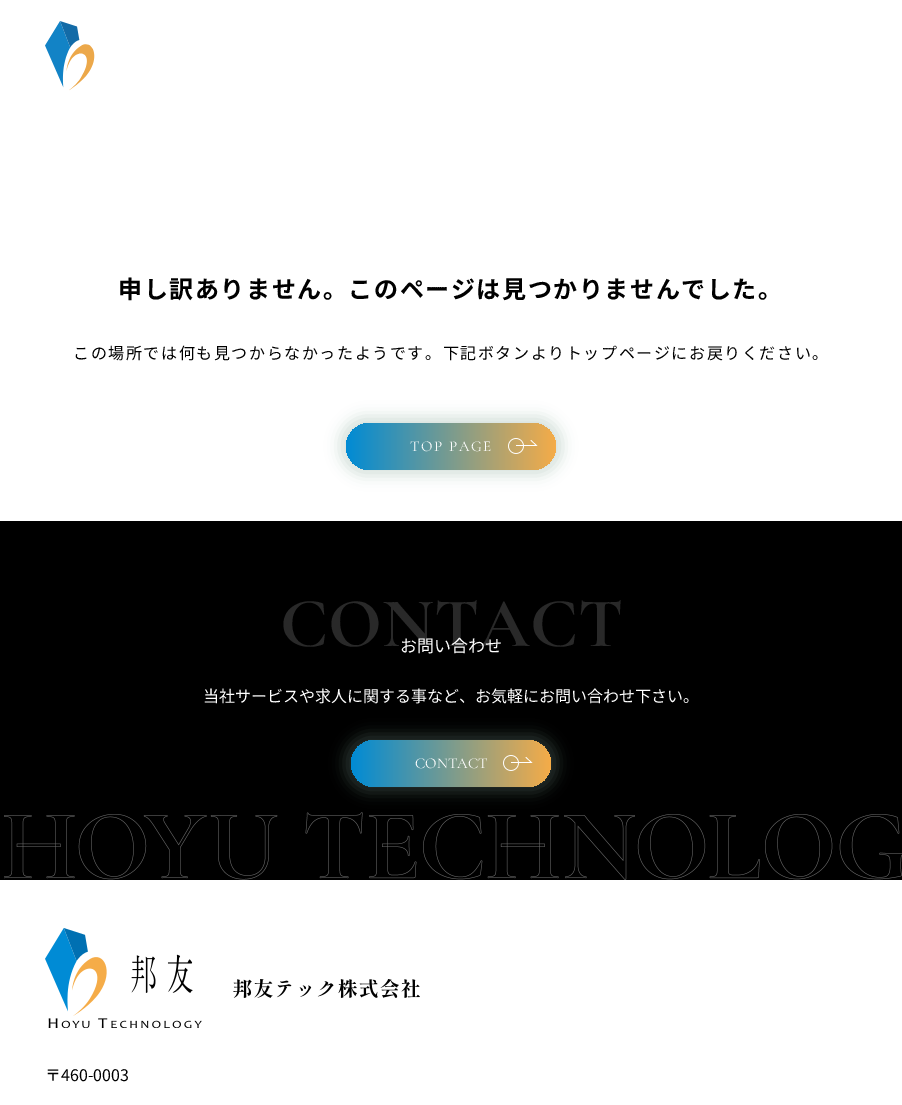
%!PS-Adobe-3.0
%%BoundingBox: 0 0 902 1105
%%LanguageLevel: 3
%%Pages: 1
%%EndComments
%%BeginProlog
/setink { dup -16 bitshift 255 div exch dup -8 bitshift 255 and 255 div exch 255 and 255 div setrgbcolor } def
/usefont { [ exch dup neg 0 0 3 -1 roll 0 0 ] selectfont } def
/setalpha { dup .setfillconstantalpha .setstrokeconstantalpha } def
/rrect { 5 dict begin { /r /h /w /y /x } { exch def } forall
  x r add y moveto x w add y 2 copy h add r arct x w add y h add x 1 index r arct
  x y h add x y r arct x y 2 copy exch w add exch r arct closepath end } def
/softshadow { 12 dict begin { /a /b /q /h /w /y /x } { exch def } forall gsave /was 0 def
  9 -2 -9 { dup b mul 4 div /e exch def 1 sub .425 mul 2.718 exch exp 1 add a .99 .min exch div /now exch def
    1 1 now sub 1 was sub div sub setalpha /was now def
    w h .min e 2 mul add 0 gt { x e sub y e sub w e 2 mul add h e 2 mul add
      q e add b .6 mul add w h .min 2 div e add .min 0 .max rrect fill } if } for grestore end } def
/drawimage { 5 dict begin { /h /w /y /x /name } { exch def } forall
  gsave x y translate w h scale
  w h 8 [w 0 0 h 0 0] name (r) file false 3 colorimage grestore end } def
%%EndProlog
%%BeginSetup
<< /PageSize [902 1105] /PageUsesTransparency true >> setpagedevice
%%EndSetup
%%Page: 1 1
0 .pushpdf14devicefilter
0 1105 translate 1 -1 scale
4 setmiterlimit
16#FFFFFF setink
0 0 902 1105 rectfill
(img1.raw) 45 21 50 70 drawimage
/NotoSansJP-Bold 24 usefont
16#000000 setink
118 298 moveto 1.6 0 (申し訳ありません。このページは見つかりませんでした。) ashow
/NotoSansJP-Regular 16 usefont
73 359 moveto 1.6 0 (この場所では何も見つからなかったようです。下記ボタンよりトップページにお戻りください。) ashow
16#D7E1DD setink
339 416 224 60 30 7 1 softshadow
gsave 346 423 210 47 23.5 rrect clip newpath
<< /ShadingType 2 /ColorSpace /DeviceRGB /Coords [136 447 556 447] /Extend [true true] /Function << /FunctionType 3 /Domain [0 1] /Functions [<< /FunctionType 2 /Domain [0 1] /C0 [0.961 0.675 0.282] /C1 [0 0.545 0.835] /N 1 >> << /FunctionType 2 /Domain [0 1] /C0 [0 0.545 0.835] /C1 [0.961 0.675 0.282] /N 1 >>] /Bounds [0.5] /Encode [0 1 0 1] >> >> shfill grestore
16#FFFFFF setink
537.5 446 moveto 516 446 lineto 516 445 lineto 535.5 445 lineto 530.5 440.5 lineto 531 440 lineto closepath fill
(img2.raw) 508 438 16 16 drawimage
/CormorantGaramond-Regular 15 usefont
410 451 moveto 1.6 0 (TOP PAGE) ashow
16#000000 setink
0 521 902 359 rectfill
/CormorantGaramond-Bold 70.5 usefont
16#292929 setink
280 646 moveto (CONTACT) show
/NotoSansJP-Regular 17 usefont
16#FFFFFF setink
400 652 moveto (お問い合わせ) show
/NotoSansJP-Regular 16 usefont
203 702 moveto (当社サービスや求人に関する事など、お気軽にお問い合わせ下さい。) show
(img4.raw) 4 812 898 68 drawimage
16#252F2B setink
344 734 214 59 29.5 7 1 softshadow
gsave 351 740 200 47 23.5 rrect clip newpath
<< /ShadingType 2 /ColorSpace /DeviceRGB /Coords [151 764 551 764] /Extend [true true] /Function << /FunctionType 3 /Domain [0 1] /Functions [<< /FunctionType 2 /Domain [0 1] /C0 [0.961 0.675 0.282] /C1 [0 0.545 0.835] /N 1 >> << /FunctionType 2 /Domain [0 1] /C0 [0 0.545 0.835] /C1 [0.961 0.675 0.282] /N 1 >>] /Bounds [0.5] /Encode [0 1 0 1] >> >> shfill grestore
16#FFFFFF setink
532.5 763 moveto 511 763 lineto 511 762 lineto 530.5 762 lineto 525.5 757.5 lineto 526 757 lineto closepath fill
(img3.raw) 503 755 16 16 drawimage
/CormorantGaramond-Regular 15 usefont
415 768 moveto (CONTACT) show
(img5.raw) 45 928 375 100 drawimage
/NotoSansJP-Regular 16 usefont
16#000000 setink
45 1081 moveto (〒460-0003) show
.poppdf14devicefilter showpage
%%EOF
